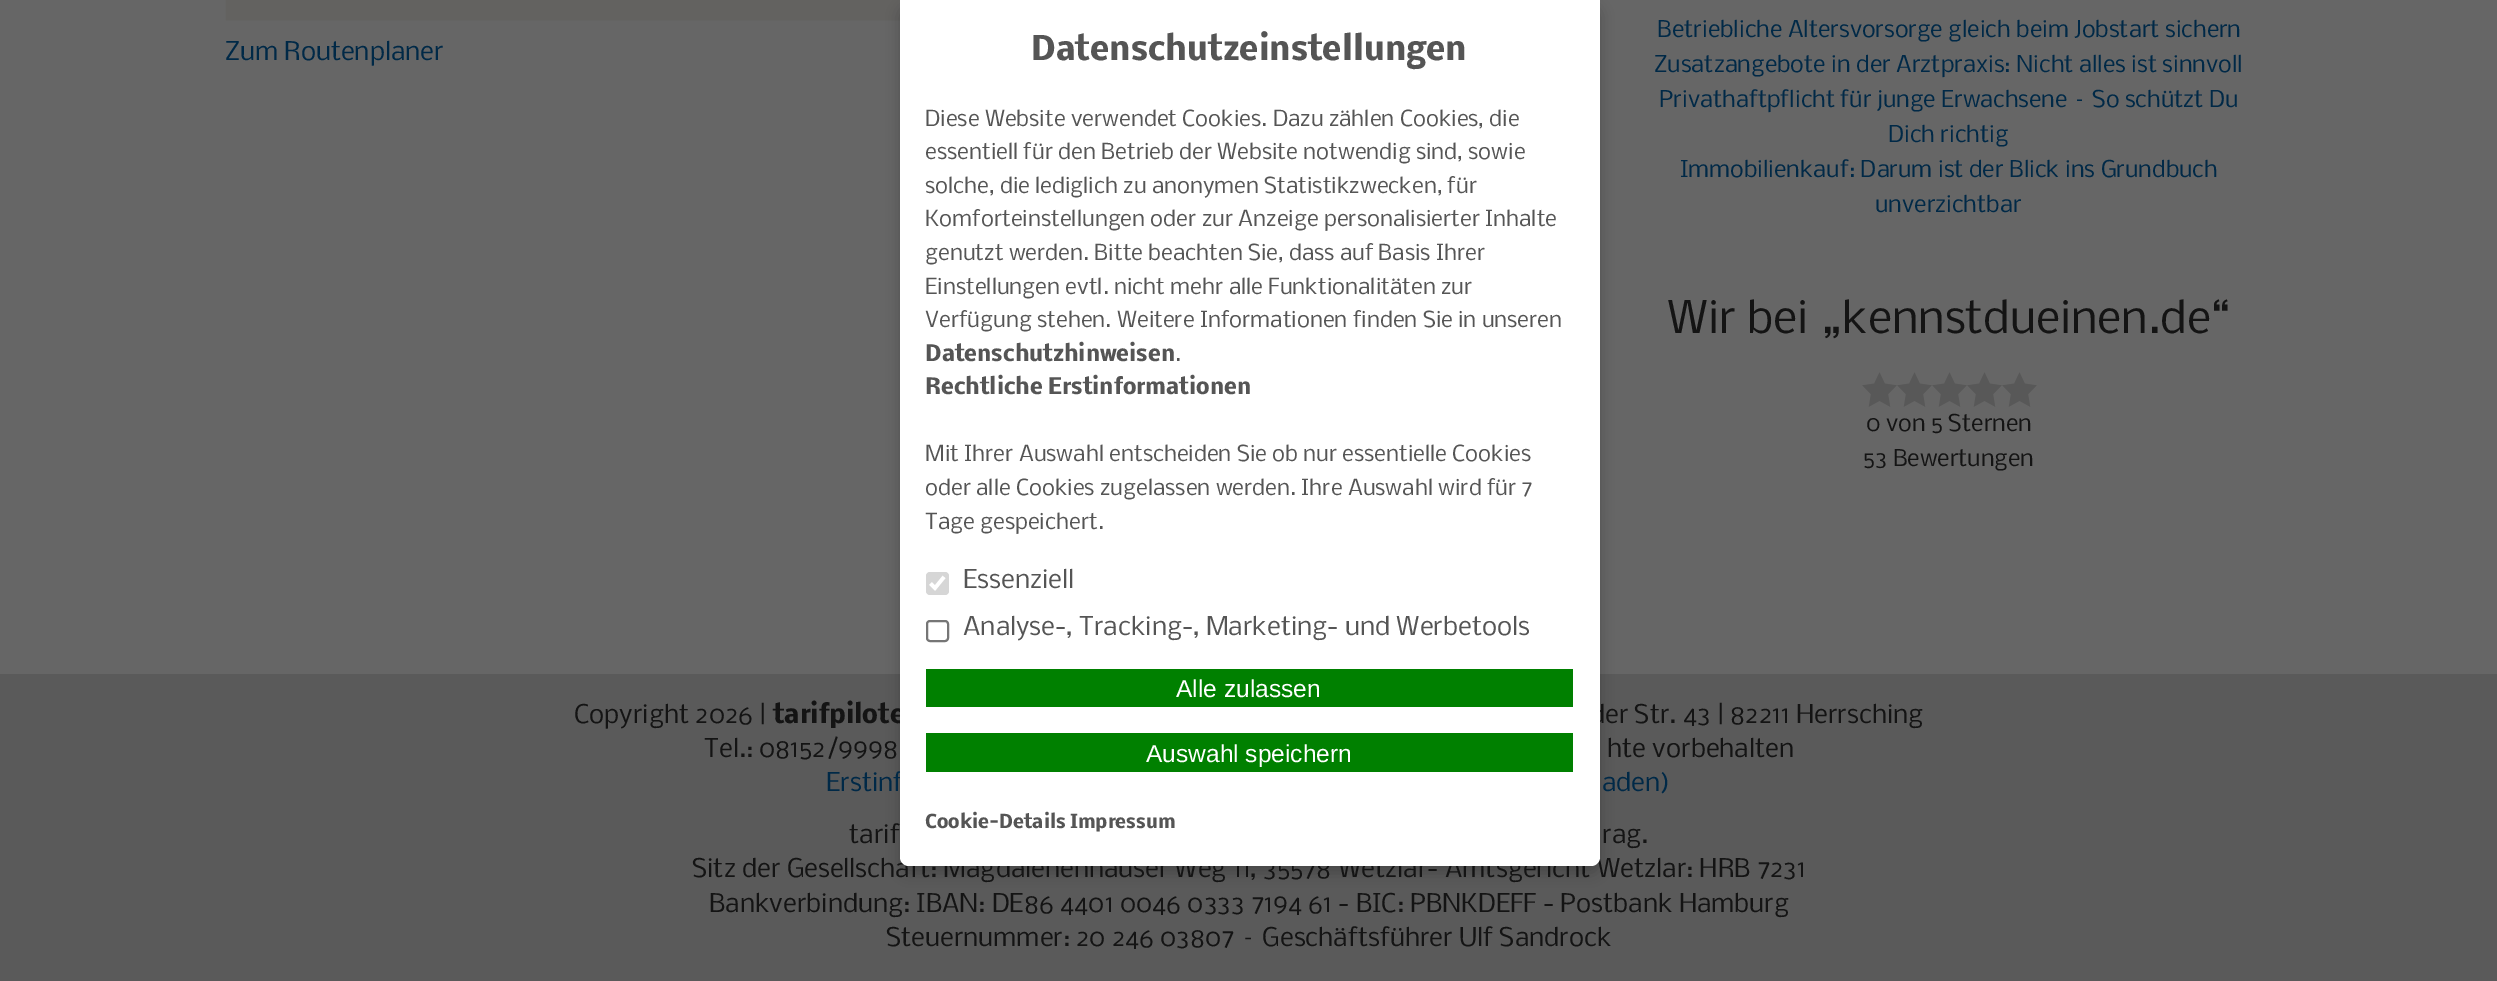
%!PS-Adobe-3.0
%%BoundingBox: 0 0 2497 981
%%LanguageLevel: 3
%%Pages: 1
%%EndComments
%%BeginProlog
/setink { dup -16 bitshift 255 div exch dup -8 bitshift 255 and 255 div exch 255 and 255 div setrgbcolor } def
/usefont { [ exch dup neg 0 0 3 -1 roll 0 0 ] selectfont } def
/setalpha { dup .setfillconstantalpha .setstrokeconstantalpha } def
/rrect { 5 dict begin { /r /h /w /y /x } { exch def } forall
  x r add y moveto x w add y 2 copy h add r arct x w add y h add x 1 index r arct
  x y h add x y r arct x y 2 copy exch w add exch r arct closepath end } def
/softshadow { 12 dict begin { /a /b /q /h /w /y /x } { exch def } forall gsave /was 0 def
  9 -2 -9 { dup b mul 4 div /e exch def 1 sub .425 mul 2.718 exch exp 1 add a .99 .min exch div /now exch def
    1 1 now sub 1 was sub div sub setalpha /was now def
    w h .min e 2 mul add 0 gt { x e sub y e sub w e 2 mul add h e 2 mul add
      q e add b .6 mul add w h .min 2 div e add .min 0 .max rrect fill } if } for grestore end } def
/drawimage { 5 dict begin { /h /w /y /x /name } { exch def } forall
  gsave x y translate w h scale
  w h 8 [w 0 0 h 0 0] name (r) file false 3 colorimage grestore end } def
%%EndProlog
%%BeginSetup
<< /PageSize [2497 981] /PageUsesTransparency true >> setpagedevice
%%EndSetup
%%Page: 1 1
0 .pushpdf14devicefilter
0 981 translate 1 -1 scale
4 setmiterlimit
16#666666 setink
0 0 2497 981 rectfill
(img1.raw) 225 0 675 21 drawimage
/Nobile-Regular 24.5 usefont
16#002947 setink
225 60 moveto (Zum Routenplaner) show
/Nobile-Regular 22.05 usefont
[
    [(Betriebliche Altersvorsorge gleich beim Jobstart sichern) 1657 37]
    [(Zusatzangebote in der Arztpraxis: Nicht alles ist sinnvoll) 1654 72]
    [(Privathaftpflicht für junge Erwachsene – So schützt Du) 1659 107]
    [(Dich richtig) 1888 142]
    [(Immobilienkauf: Darum ist der Blick ins Grundbuch) 1680 177]
    [(unverzichtbar) 1875 212]
] { aload pop moveto show } forall
/Nobile-Regular 42.9 usefont
16#141414 setink
1667 333 moveto (Wir bei „kennstdueinen.de“) show
(img2.raw) 1862 372 175 35 drawimage
/Nobile-Regular 22.05 usefont
1866 431 moveto (0 von 5 Sternen) show
1863 466 moveto (53 Bewertungen) show
16#5A5A5A setink
0 674 2497 307 rectfill
16#000000 setink
900 7 700 866 9 7 0.2 softshadow
/Nobile-Bold 24.5 usefont
16#141414 setink
773 723 moveto (tarifpilote) show
/Nobile-Regular 24.5 usefont
1590 723 moveto (der Str. 43 | 82211 Herrsching) show
16#002947 setink
826 791 moveto (Erstinf) show
16#141414 setink
692 877 moveto (Sitz der Gesellschaft: Magdalenenhäuser Weg 11, 35578 Wetzlar- Amtsgericht Wetzlar: HRB 7231) show
16#FFFFFF setink
900 0 moveto 1600 0 lineto 1600 857 lineto 1600 862 1596 866 1591 866 curveto 909 866 lineto 904 866 900 862 900 857 curveto closepath fill
/Nobile-Bold 31.5 usefont
16#555555 setink
1031 60 moveto (Datenschutzeinstellungen) show
/Nobile-Regular 21 usefont
[
    [(Diese Website verwendet Cookies. Dazu zählen Cookies, die) 925 126]
    [(essentiell für den Betrieb der Website notwendig sind, sowie) 925 159]
    [(solche, die lediglich zu anonymen Statistikzwecken, für) 925 193]
    [(Komforteinstellungen oder zur Anzeige personalisierter Inhalte) 925 226]
    [(genutzt werden. Bitte beachten Sie, dass auf Basis Ihrer) 925 260]
    [(Einstellungen evtl. nicht mehr alle Funktionalitäten zur) 925 294]
    [(Verfügung stehen. Weitere Informationen finden Sie in unseren) 925 327]
] { aload pop moveto show } forall
/Nobile-Bold 21 usefont
925 361 moveto (Datenschutzhinweisen) show
/Nobile-Regular 21 usefont
1175 361 moveto (.) show
/Nobile-Bold 21 usefont
925 394 moveto (Rechtliche Erstinformationen) show
/Nobile-Regular 21 usefont
[
    [(Mit Ihrer Auswahl entscheiden Sie ob nur essentielle Cookies) 925 461]
    [(oder alle Cookies zugelassen werden. Ihre Auswahl wird für 7) 925 495]
    [(Tage gespeichert.) 925 529]
] { aload pop moveto show } forall
16#D6D6D6 setink
926 572 23 23 4 rrect fill
16#FFFFFF setink
3.6 setlinewidth
930.5 583.5 moveto 935 588 lineto 944 577 lineto stroke
/Nobile-Regular 24.5 usefont
16#555555 setink
963 588 moveto (Essenziell) show
16#767676 setink
2 setlinewidth
927 621 21 20 3 rrect stroke
16#555555 setink
963 635 moveto (Analyse-, Tracking-, Marketing- und Werbetools) show
16#008000 setink
926 669 647 38 rectfill
/LiberationSans-Regular 24.5 usefont
16#FFFFFF setink
1176 697 moveto (Alle zulassen) show
16#008000 setink
926 733 647 39 rectfill
16#FFFFFF setink
1146 762 moveto (Auswahl speichern) show
/Nobile-Bold 17.8 usefont
16#555555 setink
925 828 moveto (Cookie-Details Impressum) show
/Nobile-Regular 24.5 usefont
16#141414 setink
[
    [(Copyright 2026 |) 574 723]
    [(Tel.: 08152/9998) 704 757]
    [(hte vorbehalten) 1607 757]
] { aload pop moveto show } forall
16#002947 setink
1602 791 moveto (aden\)) show
16#141414 setink
[
    [(tarif) 849 843]
    [(rag.) 1602 843]
    [(Bankverbindung: IBAN: DE86 4401 0046 0333 7194 61 - BIC: PBNKDEFF - Postbank Hamburg) 709 912]
    [(Steuernummer: 20 246 03807 – Geschäftsführer Ulf Sandrock) 886 946]
] { aload pop moveto show } forall
.poppdf14devicefilter showpage
%%EOF
